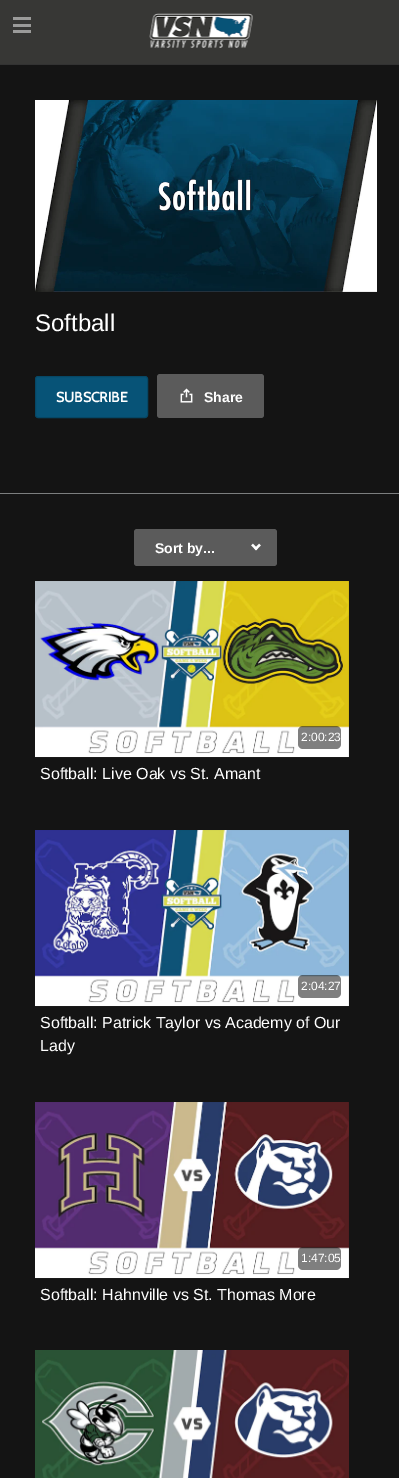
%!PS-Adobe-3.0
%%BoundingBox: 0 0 399 1478
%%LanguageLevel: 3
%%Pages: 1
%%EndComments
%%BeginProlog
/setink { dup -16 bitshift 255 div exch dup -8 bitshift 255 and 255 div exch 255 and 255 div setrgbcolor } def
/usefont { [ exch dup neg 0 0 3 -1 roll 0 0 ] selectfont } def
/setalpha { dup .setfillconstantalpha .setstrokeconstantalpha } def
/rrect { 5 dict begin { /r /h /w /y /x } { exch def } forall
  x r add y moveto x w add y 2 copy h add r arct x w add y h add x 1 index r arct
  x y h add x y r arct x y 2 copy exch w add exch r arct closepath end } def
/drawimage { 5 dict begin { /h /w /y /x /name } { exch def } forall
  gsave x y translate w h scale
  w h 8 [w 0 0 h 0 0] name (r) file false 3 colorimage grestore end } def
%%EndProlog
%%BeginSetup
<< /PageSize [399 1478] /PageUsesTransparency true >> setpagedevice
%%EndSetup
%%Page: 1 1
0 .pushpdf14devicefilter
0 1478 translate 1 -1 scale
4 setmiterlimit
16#141414 setink
0 0 399 1478 rectfill
[
    [0 0 399 64 16#373735]
    [0 64 399 1 16#323232]
    [13 17 18 3 16#9B9B9A]
    [13 24 18 3 16#9B9B9A]
    [13 30 18 3 16#9B9B9A]
] { aload pop setink rectfill } forall
(img1.raw) 149 13 104 35 drawimage
16#7C7E7F setink
0 493 399 1 rectfill
(img2.raw) 35 100 342 192 drawimage
/LiberationSans-Regular 24 usefont
16#FFFFFF setink
35 331 moveto (Softball) show
16#075377 setink
35.5 376.5 112 41 2.5 rrect gsave fill grestore
16#064765 setink
stroke
/Cabin-Bold 14 usefont
16#FFFFFF setink
56 402 moveto (SUBSCRIBE) show
16#5B5B5B setink
157 374 107 44 3 rrect fill
(img3.raw) 180 388 13 15 drawimage
/LiberationSans-Bold 14 usefont
16#FFFFFF setink
204 402 moveto (Share) show
16#5B5B5B setink
134 529 143 37 3 rrect fill
(img4.raw) 251 543 10 8 drawimage
16#FFFFFF setink
155 553 moveto (Sort by...) show
(img5.raw) 35 581 314 177 drawimage
0.5 setalpha
16#000000 setink
298 726 43 23 5 rrect fill
/LiberationSans-Regular 12 usefont
1 setalpha
16#FFFFFF setink
301 741 moveto (2:00:23) show
/LiberationSans-Regular 16 usefont
40 779 moveto (Softball: Live Oak vs St. Amant) show
(img6.raw) 35 830 314 177 drawimage
0.5 setalpha
16#000000 setink
298 975 43 23 5 rrect fill
/LiberationSans-Regular 12 usefont
1 setalpha
16#FFFFFF setink
301 990 moveto (2:04:27) show
/LiberationSans-Regular 16 usefont
40 1028 moveto (Softball: Patrick Taylor vs Academy of Our) show
40 1051 moveto (Lady) show
(img7.raw) 35 1102 314 177 drawimage
0.5 setalpha
16#000000 setink
298 1247 43 23 5 rrect fill
/LiberationSans-Regular 12 usefont
1 setalpha
16#FFFFFF setink
301 1262 moveto (1:47:05) show
/LiberationSans-Regular 16 usefont
40 1300 moveto (Softball: Hahnville vs St. Thomas More) show
(img8.raw) 35 1350 314 128 drawimage
.poppdf14devicefilter showpage
%%EOF
